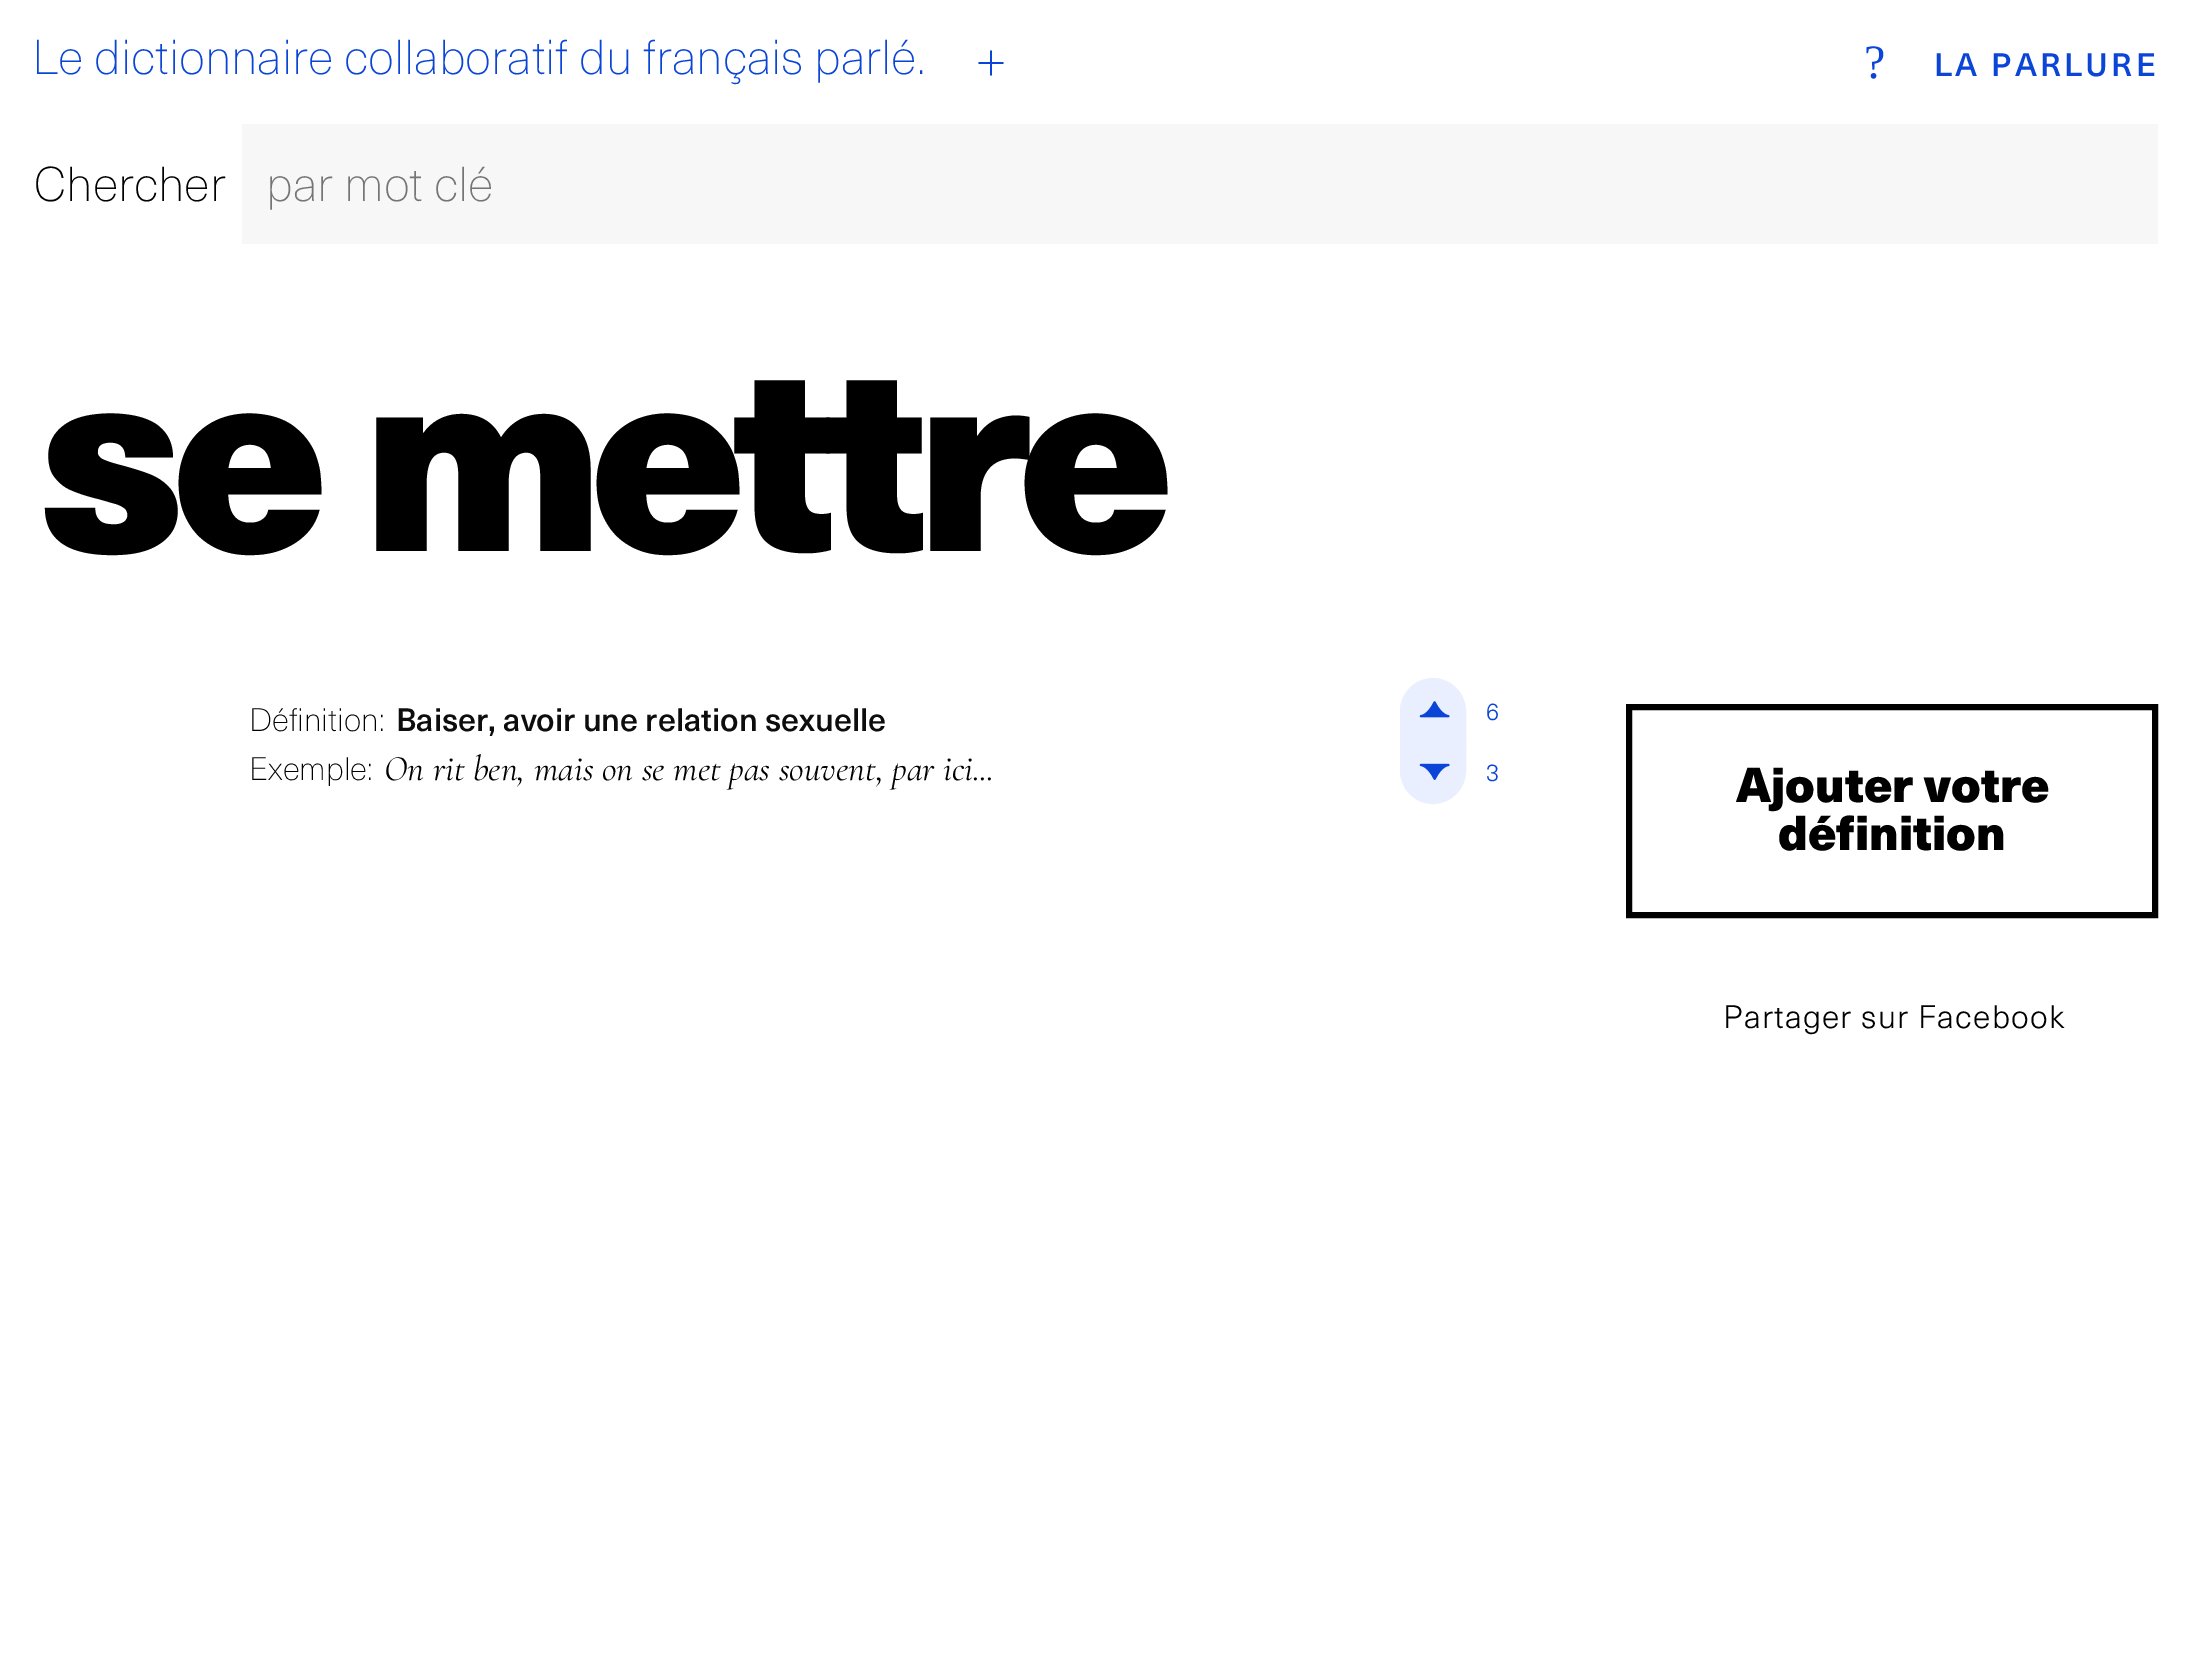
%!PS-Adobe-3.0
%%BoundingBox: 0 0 2189 1676
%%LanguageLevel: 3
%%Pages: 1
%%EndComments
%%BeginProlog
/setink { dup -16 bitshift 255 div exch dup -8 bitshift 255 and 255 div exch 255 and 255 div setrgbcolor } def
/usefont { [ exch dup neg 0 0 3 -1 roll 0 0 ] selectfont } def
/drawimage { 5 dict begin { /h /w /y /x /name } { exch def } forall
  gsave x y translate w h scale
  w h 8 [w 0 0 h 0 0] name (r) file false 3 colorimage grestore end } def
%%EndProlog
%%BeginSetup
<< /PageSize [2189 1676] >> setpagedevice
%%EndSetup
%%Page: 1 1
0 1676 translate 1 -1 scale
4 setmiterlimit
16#FFFFFF setink
0 0 2189 1676 rectfill
/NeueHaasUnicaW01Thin-Thin 48 usefont
16#0B45D8 setink
32 74 moveto (Le dictionnaire collaboratif du français parlé.) show
/NeueHaasUnicaW01Thin-Thin 60 usefont
974 82 moveto 1 0 (+) ashow
/LiberationSerif-Regular 48 usefont
1864 78 moveto 1 0 (?) ashow
/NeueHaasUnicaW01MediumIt-Medium 32 usefont
1934 76 moveto 3.25 0 (LA PARLURE) ashow
/NeueHaasUnicaW01Thin-Thin 48 usefont
16#000000 setink
34 201 moveto (Chercher) show
16#F7F7F7 setink
242 124 1916 120 rectfill
16#757575 setink
266 201 moveto (par mot clé) show
/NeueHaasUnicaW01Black-Black 263 usefont
16#000000 setink
38 551 moveto -13.25 0 (se mettre) ashow
/NeueHaasUnicaW01Thin-Thin 32 usefont
249 731 moveto (Définition:) show
/NeueHaasUnicaW01MediumIt-Medium 32 usefont
16#0D0D0D setink
396 731 moveto (Baiser, avoir une relation sexuelle) show
/NeueHaasUnicaW01Thin-Thin 32 usefont
16#000000 setink
249 780 moveto (Exemple:) show
/CormorantGaramond-Italic 36 usefont
384 780 moveto (On rit ben, mais on se met pas souvent, par ici...) show
16#E9EFFE setink
2 setlinewidth
1433 679 moveto 1450.5 679 1465 693.5 1465 711 curveto 1465 743 lineto 1401 743 lineto 1401 711 lineto 1401 693.5 1415.5 679 1433 679 curveto closepath stroke
1433 680 moveto 1450 680 1464 694 1464 711 curveto 1464 742 lineto 1402 742 lineto 1402 711 lineto 1402 694 1416 680 1433 680 curveto closepath fill
(img1.raw) 1419 701 31 17 drawimage
/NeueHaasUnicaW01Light-Light 24 usefont
16#0B45D8 setink
1486 720 moveto (6) show
16#E9EFFE setink
1401 741 moveto 1465 741 lineto 1465 771 lineto 1465 788.5 1450.5 803 1433 803 curveto 1415.5 803 1401 788.5 1401 771 curveto closepath stroke
1402 742 moveto 1464 742 lineto 1464 771 lineto 1464 788 1450 802 1433 802 curveto 1416 802 1402 788 1402 771 curveto closepath fill
(img2.raw) 1419 763 31 17 drawimage
16#0B45D8 setink
1486 781 moveto (3) show
16#000000 setink
6 setlinewidth
1629 707 526 208 rectstroke
/NeueHaasUnicaW01Black-Black 48 usefont
1736 802 moveto (Ajouter votre) show
1778 850 moveto (définition) show
/NeueHaasUnicaW01Light-Light 32 usefont
1723 1028 moveto 1.2 0 (Partager sur Facebook) ashow
showpage
%%EOF
